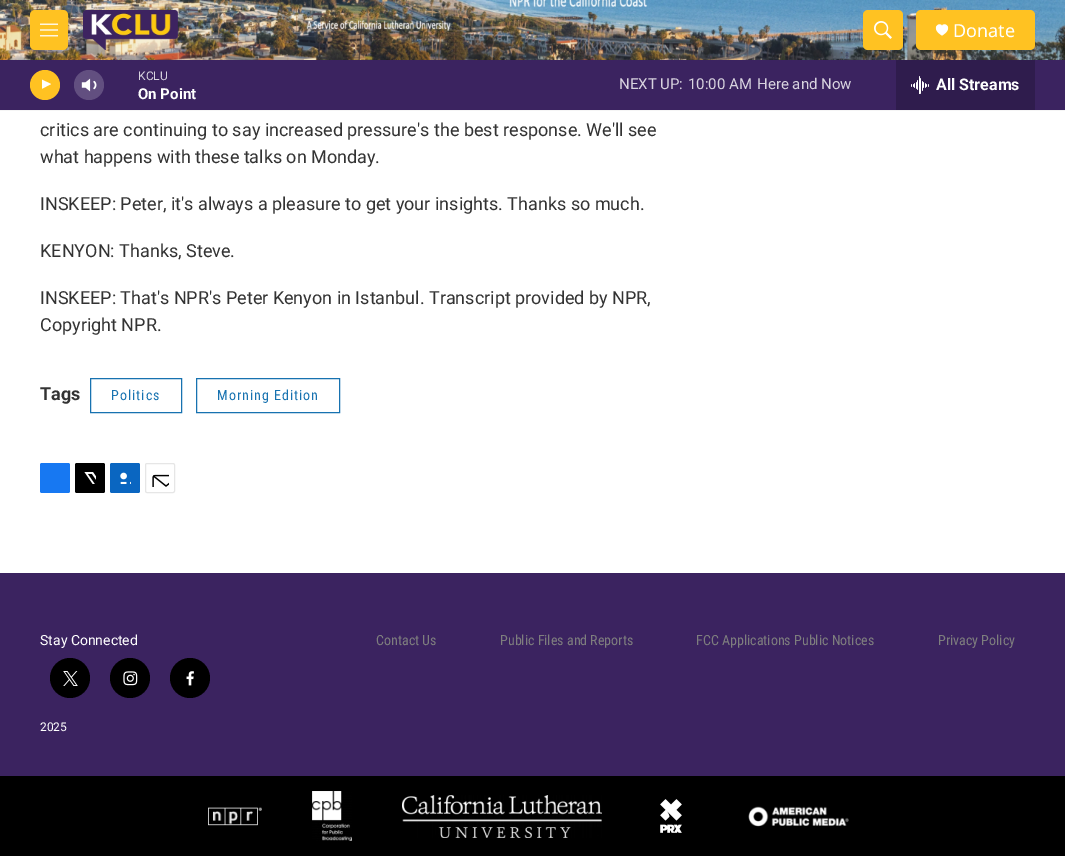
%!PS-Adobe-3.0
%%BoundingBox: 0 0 1065 856
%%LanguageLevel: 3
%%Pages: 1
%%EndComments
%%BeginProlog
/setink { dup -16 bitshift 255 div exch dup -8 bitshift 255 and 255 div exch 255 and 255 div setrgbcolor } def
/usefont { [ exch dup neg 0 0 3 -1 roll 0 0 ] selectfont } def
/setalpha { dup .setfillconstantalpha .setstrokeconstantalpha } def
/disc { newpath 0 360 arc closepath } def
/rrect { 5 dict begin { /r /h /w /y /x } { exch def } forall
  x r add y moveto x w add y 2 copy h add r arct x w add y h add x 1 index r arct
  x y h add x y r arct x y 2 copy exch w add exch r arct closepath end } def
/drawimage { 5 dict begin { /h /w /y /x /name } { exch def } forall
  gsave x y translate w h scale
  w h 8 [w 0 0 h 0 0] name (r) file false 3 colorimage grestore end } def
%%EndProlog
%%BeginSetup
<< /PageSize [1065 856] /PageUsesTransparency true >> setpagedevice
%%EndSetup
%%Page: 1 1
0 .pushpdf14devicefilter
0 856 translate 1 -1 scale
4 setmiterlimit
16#FFFFFF setink
0 0 1065 856 rectfill
16#F5F5F5 setink
0 110 1065 1 rectfill
(img1.raw) 0 0 1065 60 drawimage
16#FFC222 setink
30 10 38 40 5 rrect fill
(img2.raw) 40 23 18 14 drawimage
(img3.raw) 83 10 95 40 drawimage
863 10 40 40 5 rrect fill
(img4.raw) 874 21 18 18 drawimage
916 10 119 40 5 rrect fill
16#FFFFFF setink
942 26 moveto 940 21 929.5 28 942 35.5 curveto 954.5 28 944 21 942 26 curveto closepath fill
/NotoSans-Regular 18 usefont
953 37 moveto (Donate) show
16#3B2360 setink
0 60 1065 50 rectfill
16#FFC222 setink
45 85 15 disc fill
gsave
42 78 12 15 rectclip
16#FFFFFF setink
41.5 79.5 moveto 51 84 lineto 41.5 89 lineto closepath fill
grestore
(img5.raw) 81 78 16 14 drawimage
0.2 setalpha
16#FFFFFF setink
89 85 15 disc fill
/Roboto-Regular 12 usefont
1 setalpha
16#D8D3DF setink
138 80 moveto (KCLU) show
/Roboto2-Bold 15 usefont
16#FFFFFF setink
138 99 moveto (On Point) show
/Roboto-Regular 15 usefont
16#D8D3DF setink
[
    [(NEXT UP:) 619 89]
    [(10:00 AM) 688 89]
    [(Here and Now) 757 89]
] { aload pop moveto show } forall
16#2F1C4D setink
896 60 139 50 rectfill
(img6.raw) 911 76 18 18 drawimage
/Roboto2-Bold 16 usefont
16#FFFFFF setink
936 90 moveto (All Streams) show
/Roboto-Regular 18 usefont
16#333333 setink
[
    [(critics are continuing to say increased pressure's the best response. We'll see) 40 136]
    [(what happens with these talks on Monday.) 40 163]
    [(INSKEEP: Peter, it's always a pleasure to get your insights. Thanks so much.) 40 210]
    [(KENYON: Thanks, Steve.) 40 257]
    [(INSKEEP: That's NPR's Peter Kenyon in Istanbul. Transcript provided by NPR,) 40 304]
    [(Copyright NPR.) 40 331]
] { aload pop moveto show } forall
/Roboto-Bold 18 usefont
40 400 moveto (Tags) show
16#1772B0 setink
90.5 378.5 91 34 rectstroke
/RobotoCondensed-Regular 14 usefont
111 400 moveto 1 0 (Politics) ashow
196.5 378.5 143 34 rectstroke
217 400 moveto 1 0 (Morning Edition) ashow
16#1778F2 setink
40 463 30 30 2 rrect fill
16#000000 setink
75 463 30 30 2 rrect fill
(img7.raw) 84 472 12 12 drawimage
16#0A66C1 setink
110 463 30 30 2 rrect fill
(img8.raw) 120 472 11 12 drawimage
16#E6E6E6 setink
145.5 463.5 29 29 1.5 rrect stroke
(img9.raw) 152 474 17 13 drawimage
16#3B2360 setink
0 573 1065 203 rectfill
/Roboto-Regular 14 usefont
16#FFFFFF setink
40 645 moveto (Stay Connected) show
16#000000 setink
70 678 20 disc fill
(img10.raw) 63 671 15 15 drawimage
130 678 20 disc fill
(img11.raw) 123 671 15 15 drawimage
190 678 20 disc fill
(img12.raw) 186 671 8 15 drawimage
/Roboto-Regular 12 usefont
16#FFFFFF setink
40 731 moveto (2025) show
/RobotoCondensed-Regular 14 usefont
16#7E7E7E setink
[
    [(Contact Us) 376 645]
    [(Public Files and Reports) 500 645]
    [(FCC Applications Public Notices) 696 645]
    [(Privacy Policy) 938 645]
] { aload pop moveto show } forall
16#000000 setink
0 776 1065 80 rectfill
(img13.raw) 208 807 54 19 drawimage
(img14.raw) 312 791 40 50 drawimage
(img15.raw) 402 795 200 43 drawimage
(img16.raw) 660 799 22 34 drawimage
(img17.raw) 748 806 101 21 drawimage
.poppdf14devicefilter showpage
%%EOF
